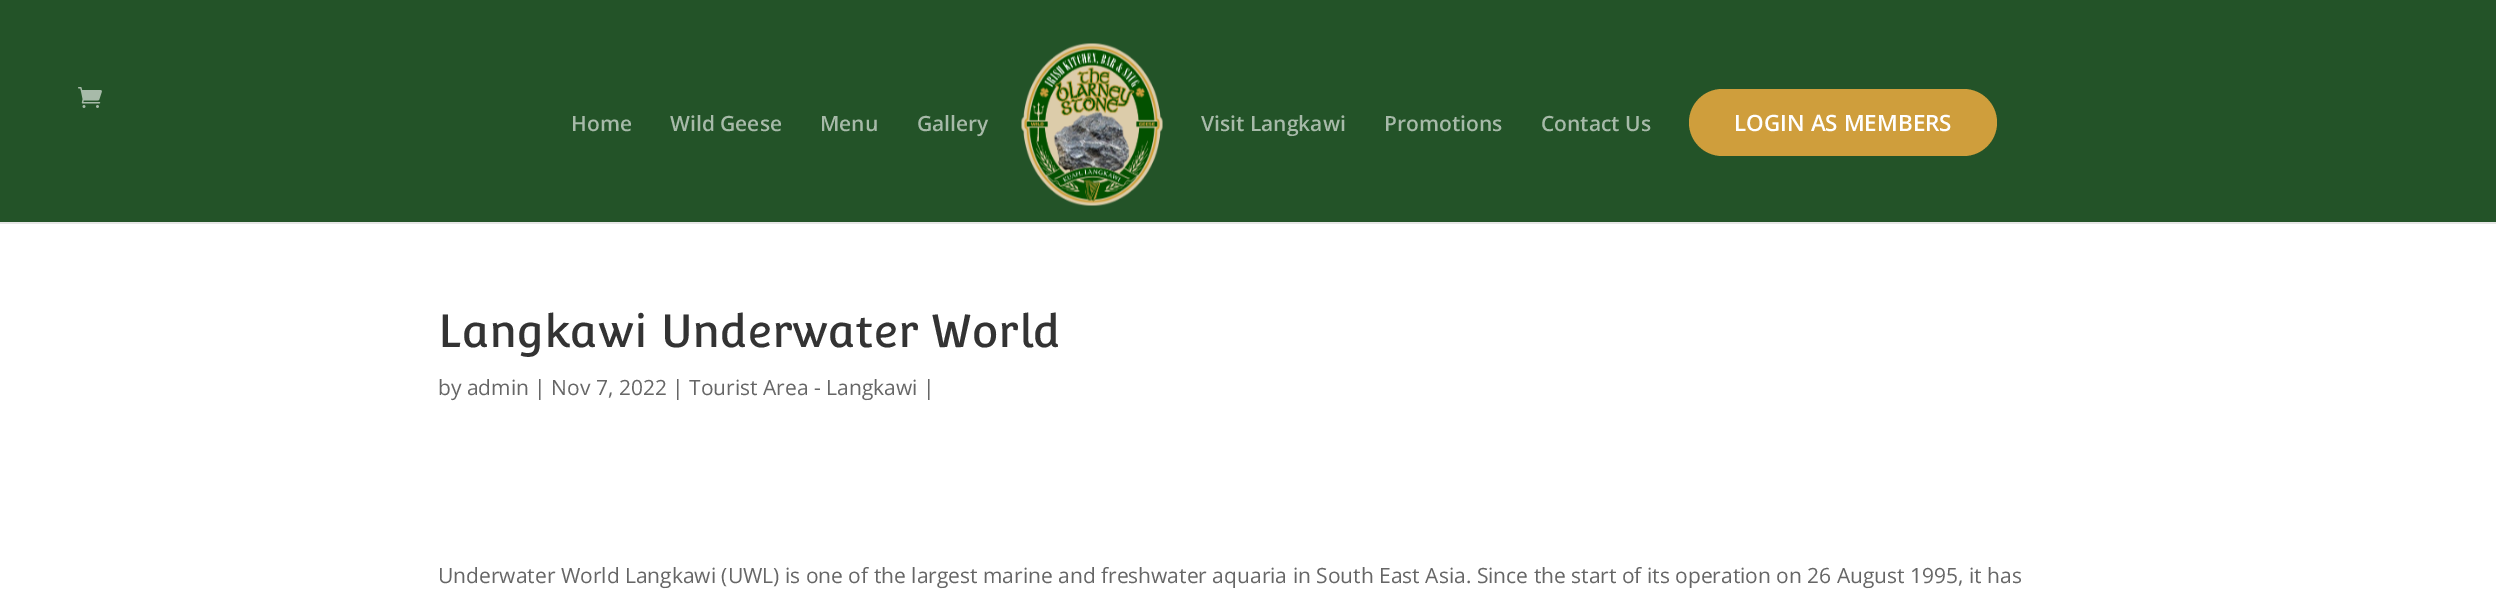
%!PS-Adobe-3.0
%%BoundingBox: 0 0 2496 591
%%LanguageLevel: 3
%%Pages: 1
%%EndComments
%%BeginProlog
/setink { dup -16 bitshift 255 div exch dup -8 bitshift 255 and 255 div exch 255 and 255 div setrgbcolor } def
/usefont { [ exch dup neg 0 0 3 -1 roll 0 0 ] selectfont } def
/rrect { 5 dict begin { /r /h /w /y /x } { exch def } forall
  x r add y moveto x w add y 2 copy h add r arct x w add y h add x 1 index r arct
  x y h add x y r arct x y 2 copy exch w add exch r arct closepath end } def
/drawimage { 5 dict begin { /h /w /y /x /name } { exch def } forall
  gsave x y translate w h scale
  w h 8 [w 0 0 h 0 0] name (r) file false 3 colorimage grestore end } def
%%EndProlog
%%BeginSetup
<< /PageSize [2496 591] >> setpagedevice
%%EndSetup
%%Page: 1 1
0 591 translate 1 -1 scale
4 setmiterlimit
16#FFFFFF setink
0 0 2496 591 rectfill
16#E6E6E6 setink
0 222 2496 2 rectfill
16#235328 setink
0 0 2496 222 rectfill
(img1.raw) 78 87 24 21 drawimage
/OpenSans-SemiBold 21 usefont
16#A7BAA9 setink
[
    [(Home) 571 131]
    [(Wild Geese) 670 131]
    [(Menu) 820 131]
    [(Gallery) 917 131]
] { aload pop moveto show } forall
(img2.raw) 1021 43 142 163 drawimage
[
    [(Visit Langkawi) 1201 131]
    [(Promotions) 1384 131]
    [(Contact Us) 1541 131]
] { aload pop moveto show } forall
16#CF9E3C setink
1689 89 308 67 33.5 rrect fill
/OpenSans-SemiBold 22.5 usefont
16#FFFFFF setink
1734 131 moveto (LOGIN AS MEMBERS) show
/Convergence-Regular 45 usefont
16#333333 setink
438 347 moveto (Langkawi Underwater World) show
/OpenSans-Regular 21 usefont
16#666666 setink
438 395 moveto (by admin | Nov 7, 2022 | Tourist Area - Langkawi |) show
438 583 moveto (Underwater World Langkawi \(UWL\) is one of the largest marine and freshwater aquaria in South East Asia. Since the start of its operation on 26 August 1995, it has) show
showpage
%%EOF
